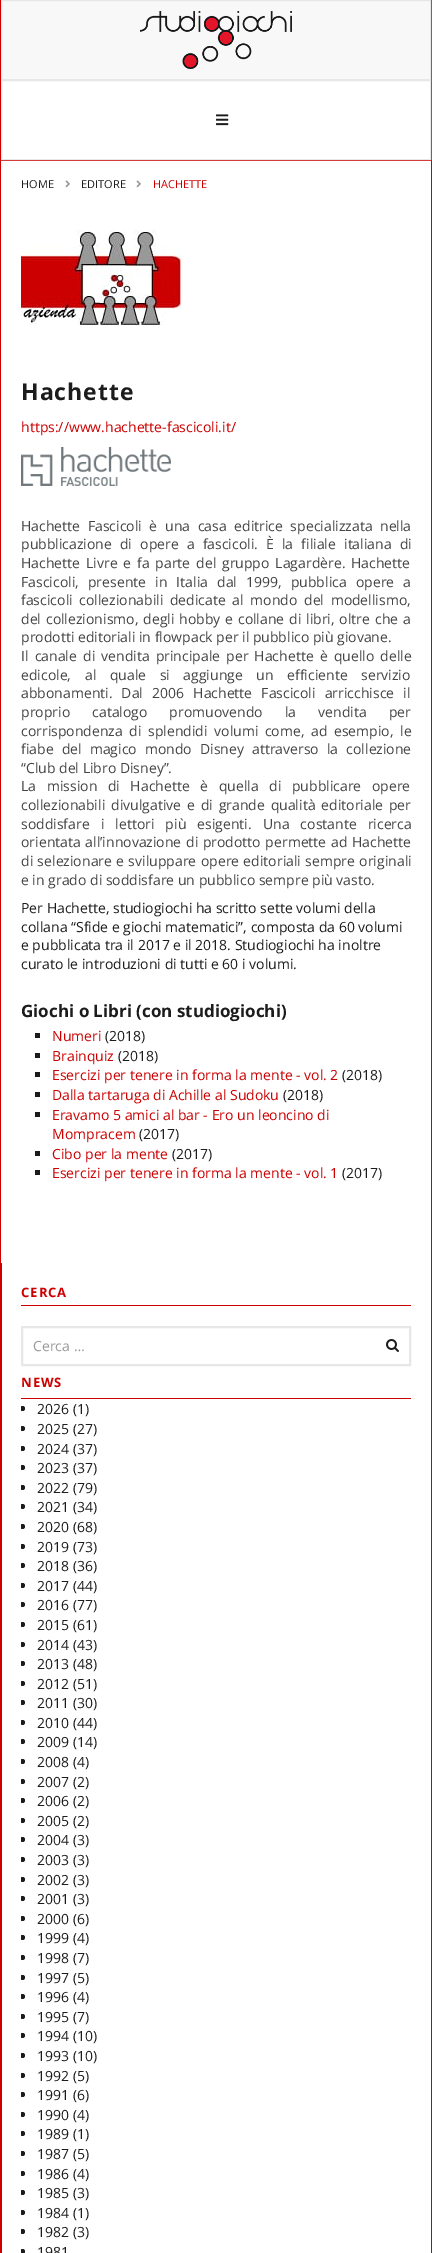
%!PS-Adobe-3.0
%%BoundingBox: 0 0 432 2253
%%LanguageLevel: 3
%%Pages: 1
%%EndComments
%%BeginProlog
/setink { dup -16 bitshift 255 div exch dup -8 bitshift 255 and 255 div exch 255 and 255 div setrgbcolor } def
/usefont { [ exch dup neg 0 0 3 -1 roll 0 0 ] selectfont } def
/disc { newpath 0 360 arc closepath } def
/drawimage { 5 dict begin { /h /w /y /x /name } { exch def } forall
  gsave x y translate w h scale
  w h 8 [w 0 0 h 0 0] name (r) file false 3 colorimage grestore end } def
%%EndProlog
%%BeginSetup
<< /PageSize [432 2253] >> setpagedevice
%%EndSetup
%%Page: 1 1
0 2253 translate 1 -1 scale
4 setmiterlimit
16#FFFFFF setink
0 0 432 2253 rectfill
16#CC0000 setink
431 0 1 2253 rectfill
0 0 1 2253 rectfill
16#F8F8F8 setink
1.5 0.5 moveto 430.5 0.5 lineto 430.5 79.5 lineto 1.5 79.5 lineto closepath gsave fill grestore
16#E7E7E7 setink
stroke
(img1.raw) 140 11 152 58 drawimage
16#CC0000 setink
1 160 430 1 rectfill
16#E7E7E7 setink
1.5 80.5 429 79 rectstroke
(img2.raw) 216 114 13 12 drawimage
/OpenSans-Regular 11 usefont
16#1C1C1C setink
21 188 moveto (HOME) show
(img3.raw) 65 180 5 8 drawimage
81 188 moveto (EDITORE) show
(img3.raw) 136 180 5 8 drawimage
16#CC0000 setink
153 188 moveto (HACHETTE) show
(img4.raw) 21 230 160 96 drawimage
/OpenSans-Bold 23 usefont
16#1C1C1C setink
21 400 moveto 1 0 (Hachette) ashow
/OpenSans-Regular 14 usefont
16#CC0000 setink
21 432 moveto (https://www.hachette-fascicoli.it/) show
(img5.raw) 21 447 150 39 drawimage
16#444444 setink
21 531 moveto 4 0 32 (Hachette Fascicoli è una casa editrice specializzata nella) widthshow
21 549 moveto 4.5 0 32 (pubblicazione di opere a fascicoli. È la filiale italiana di) widthshow
21 568 moveto 2.25 0 32 (Hachette Livre e fa parte del gruppo Lagardère. Hachette) widthshow
21 587 moveto 5.5 0 32 (Fascicoli, presente in Italia dal 1999, pubblica opere a) widthshow
21 605 moveto 3 0 32 (fascicoli collezionabili dedicate al mondo del modellismo,) widthshow
21 624 moveto 1.25 0 32 (del collezionismo, degli hobby e collane di libri, oltre che a) widthshow
21 642 moveto (prodotti editoriali in flowpack per il pubblico più giovane.) show
21 661 moveto 2.5 0 32 (Il canale di vendita principale per Hachette è quello delle) widthshow
21 680 moveto 10 0 32 (edicole, al quale si aggiunge un efficiente servizio) widthshow
21 698 moveto 5.5 0 32 (abbonamenti. Dal 2006 Hachette Fascicoli arricchisce il) widthshow
21 717 moveto 18.5 0 32 (proprio catalogo promuovendo la vendita per) widthshow
21 736 moveto 3 0 32 (corrispondenza di splendidi volumi come, ad esempio, le) widthshow
21 754 moveto 4.5 0 32 (fiabe del magico mondo Disney attraverso la collezione) widthshow
21 773 moveto (“Club del Libro Disney”.) show
21 791 moveto 7 0 32 (La mission di Hachette è quella di pubblicare opere) widthshow
21 810 moveto 2.25 0 32 (collezionabili divulgative e di grande qualità editoriale per) widthshow
21 829 moveto 7.5 0 32 (soddisfare i lettori più esigenti. Una costante ricerca) widthshow
21 847 moveto 1 0 32 (orientata all’innovazione di prodotto permette ad Hachette) widthshow
21 866 moveto 0.75 0 32 (di selezionare e sviluppare opere editoriali sempre originali) widthshow
21 885 moveto (e in grado di soddisfare un pubblico sempre più vasto.) show
16#1C1C1C setink
[
    [(Per Hachette, studiogiochi ha scritto sette volumi della) 21 913]
    [(collana “Sfide e giochi matematici”, composta da 60 volumi) 21 932]
    [(e pubblicata tra il 2017 e il 2018. Studiogiochi ha inoltre) 21 950]
    [(curato le introduzioni di tutti e 60 i volumi.) 21 969]
] { aload pop moveto show } forall
/OpenSans-Bold 17 usefont
21 1017 moveto (Giochi o Libri \(con studiogiochi\)) show
35 1033 5 5 rectfill
/OpenSans-Regular 14 usefont
16#CC0000 setink
52 1041 moveto (Numeri) show
16#1C1C1C setink
105 1041 moveto (\(2018\)) show
35 1053 5 5 rectfill
16#CC0000 setink
52 1061 moveto (Brainquiz) show
16#1C1C1C setink
118 1061 moveto (\(2018\)) show
35 1072 5 5 rectfill
16#CC0000 setink
52 1080 moveto (Esercizi per tenere in forma la mente - vol. 2) show
16#1C1C1C setink
342 1080 moveto (\(2018\)) show
35 1092 5 5 rectfill
16#CC0000 setink
52 1100 moveto (Dalla tartaruga di Achille al Sudoku) show
16#1C1C1C setink
283 1100 moveto (\(2018\)) show
35 1112 5 5 rectfill
16#CC0000 setink
52 1120 moveto (Eravamo 5 amici al bar - Ero un leoncino di) show
52 1139 moveto (Mompracem) show
16#1C1C1C setink
139 1139 moveto (\(2017\)) show
35 1151 5 5 rectfill
16#CC0000 setink
52 1159 moveto (Cibo per la mente) show
16#1C1C1C setink
172 1159 moveto (\(2017\)) show
35 1170 5 5 rectfill
16#CC0000 setink
52 1178 moveto (Esercizi per tenere in forma la mente - vol. 1) show
16#1C1C1C setink
342 1178 moveto (\(2017\)) show
16#CC0000 setink
1 1263 1 990 rectfill
/OpenSans-Bold 13 usefont
21 1297 moveto 1 0 (CERCA) ashow
21 1305 390 1 rectfill
16#E7E7E7 setink
2 setlinewidth
22 1327 388 38 rectstroke
/OpenSans-Regular 14 usefont
16#999999 setink
33 1351 moveto (Cerca …) show
(img6.raw) 386 1339 13 13 drawimage
/OpenSans-Bold 13 usefont
16#CC0000 setink
21 1387 moveto 1 0 (NEWS) ashow
21 1398 390 1 rectfill
gsave
21 1283 390 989 rectclip
16#1C1C1C setink
22.5 1408.5 2.5 disc fill
grestore
/OpenSans-Regular 14 usefont
16#1C1C1C setink
37 1414 moveto (2026 \(1\)) show
gsave
21 1283 390 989 rectclip
22.5 1428.5 2.5 disc fill
grestore
37 1434 moveto (2025 \(27\)) show
gsave
21 1283 390 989 rectclip
22.5 1448.5 2.5 disc fill
grestore
37 1454 moveto (2024 \(37\)) show
gsave
21 1283 390 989 rectclip
22.5 1467.5 2.5 disc fill
grestore
37 1473 moveto (2023 \(37\)) show
gsave
21 1283 390 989 rectclip
22.5 1487.5 2.5 disc fill
grestore
37 1493 moveto (2022 \(79\)) show
gsave
21 1283 390 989 rectclip
22.5 1506.5 2.5 disc fill
grestore
37 1512 moveto (2021 \(34\)) show
gsave
21 1283 390 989 rectclip
22.5 1526.5 2.5 disc fill
grestore
37 1532 moveto (2020 \(68\)) show
gsave
21 1283 390 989 rectclip
22.5 1546.5 2.5 disc fill
grestore
37 1552 moveto (2019 \(73\)) show
gsave
21 1283 390 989 rectclip
22.5 1565.5 2.5 disc fill
grestore
37 1571 moveto (2018 \(36\)) show
gsave
21 1283 390 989 rectclip
22.5 1585.5 2.5 disc fill
grestore
37 1591 moveto (2017 \(44\)) show
gsave
21 1283 390 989 rectclip
22.5 1604.5 2.5 disc fill
grestore
37 1610 moveto (2016 \(77\)) show
gsave
21 1283 390 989 rectclip
22.5 1624.5 2.5 disc fill
grestore
37 1630 moveto (2015 \(61\)) show
gsave
21 1283 390 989 rectclip
22.5 1644.5 2.5 disc fill
grestore
37 1650 moveto (2014 \(43\)) show
gsave
21 1283 390 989 rectclip
22.5 1663.5 2.5 disc fill
grestore
37 1669 moveto (2013 \(48\)) show
gsave
21 1283 390 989 rectclip
22.5 1683.5 2.5 disc fill
grestore
37 1689 moveto (2012 \(51\)) show
gsave
21 1283 390 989 rectclip
22.5 1702.5 2.5 disc fill
grestore
37 1708 moveto (2011 \(30\)) show
gsave
21 1283 390 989 rectclip
22.5 1722.5 2.5 disc fill
grestore
37 1728 moveto (2010 \(44\)) show
gsave
21 1283 390 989 rectclip
22.5 1741.5 2.5 disc fill
grestore
37 1747 moveto (2009 \(14\)) show
gsave
21 1283 390 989 rectclip
22.5 1761.5 2.5 disc fill
grestore
37 1767 moveto (2008 \(4\)) show
gsave
21 1283 390 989 rectclip
22.5 1781.5 2.5 disc fill
grestore
37 1787 moveto (2007 \(2\)) show
gsave
21 1283 390 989 rectclip
22.5 1800.5 2.5 disc fill
grestore
37 1806 moveto (2006 \(2\)) show
gsave
21 1283 390 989 rectclip
22.5 1820.5 2.5 disc fill
grestore
37 1826 moveto (2005 \(2\)) show
gsave
21 1283 390 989 rectclip
22.5 1839.5 2.5 disc fill
grestore
37 1845 moveto (2004 \(3\)) show
gsave
21 1283 390 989 rectclip
22.5 1859.5 2.5 disc fill
grestore
37 1865 moveto (2003 \(3\)) show
gsave
21 1283 390 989 rectclip
22.5 1879.5 2.5 disc fill
grestore
37 1885 moveto (2002 \(3\)) show
gsave
21 1283 390 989 rectclip
22.5 1898.5 2.5 disc fill
grestore
37 1904 moveto (2001 \(3\)) show
gsave
21 1283 390 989 rectclip
22.5 1918.5 2.5 disc fill
grestore
37 1924 moveto (2000 \(6\)) show
gsave
21 1283 390 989 rectclip
22.5 1937.5 2.5 disc fill
grestore
37 1943 moveto (1999 \(4\)) show
gsave
21 1283 390 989 rectclip
22.5 1957.5 2.5 disc fill
grestore
37 1963 moveto (1998 \(7\)) show
gsave
21 1283 390 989 rectclip
22.5 1977.5 2.5 disc fill
grestore
37 1983 moveto (1997 \(5\)) show
gsave
21 1283 390 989 rectclip
22.5 1996.5 2.5 disc fill
grestore
37 2002 moveto (1996 \(4\)) show
gsave
21 1283 390 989 rectclip
22.5 2016.5 2.5 disc fill
grestore
37 2022 moveto (1995 \(7\)) show
gsave
21 1283 390 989 rectclip
22.5 2035.5 2.5 disc fill
grestore
37 2041 moveto (1994 \(10\)) show
gsave
21 1283 390 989 rectclip
22.5 2055.5 2.5 disc fill
grestore
37 2061 moveto (1993 \(10\)) show
gsave
21 1283 390 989 rectclip
22.5 2075.5 2.5 disc fill
grestore
37 2081 moveto (1992 \(5\)) show
gsave
21 1283 390 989 rectclip
22.5 2094.5 2.5 disc fill
grestore
37 2100 moveto (1991 \(6\)) show
gsave
21 1283 390 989 rectclip
22.5 2114.5 2.5 disc fill
grestore
37 2120 moveto (1990 \(4\)) show
gsave
21 1283 390 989 rectclip
22.5 2133.5 2.5 disc fill
grestore
37 2139 moveto (1989 \(1\)) show
gsave
21 1283 390 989 rectclip
22.5 2153.5 2.5 disc fill
grestore
37 2159 moveto (1987 \(5\)) show
gsave
21 1283 390 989 rectclip
22.5 2173.5 2.5 disc fill
grestore
37 2179 moveto (1986 \(4\)) show
gsave
21 1283 390 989 rectclip
22.5 2192.5 2.5 disc fill
grestore
37 2198 moveto (1985 \(3\)) show
gsave
21 1283 390 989 rectclip
22.5 2212.5 2.5 disc fill
grestore
37 2218 moveto (1984 \(1\)) show
gsave
21 1283 390 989 rectclip
22.5 2231.5 2.5 disc fill
grestore
37 2237 moveto (1982 \(3\)) show
gsave
21 1283 390 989 rectclip
22.5 2251.5 2.5 disc fill
grestore
37 2257 moveto (1981) show
showpage
%%EOF
